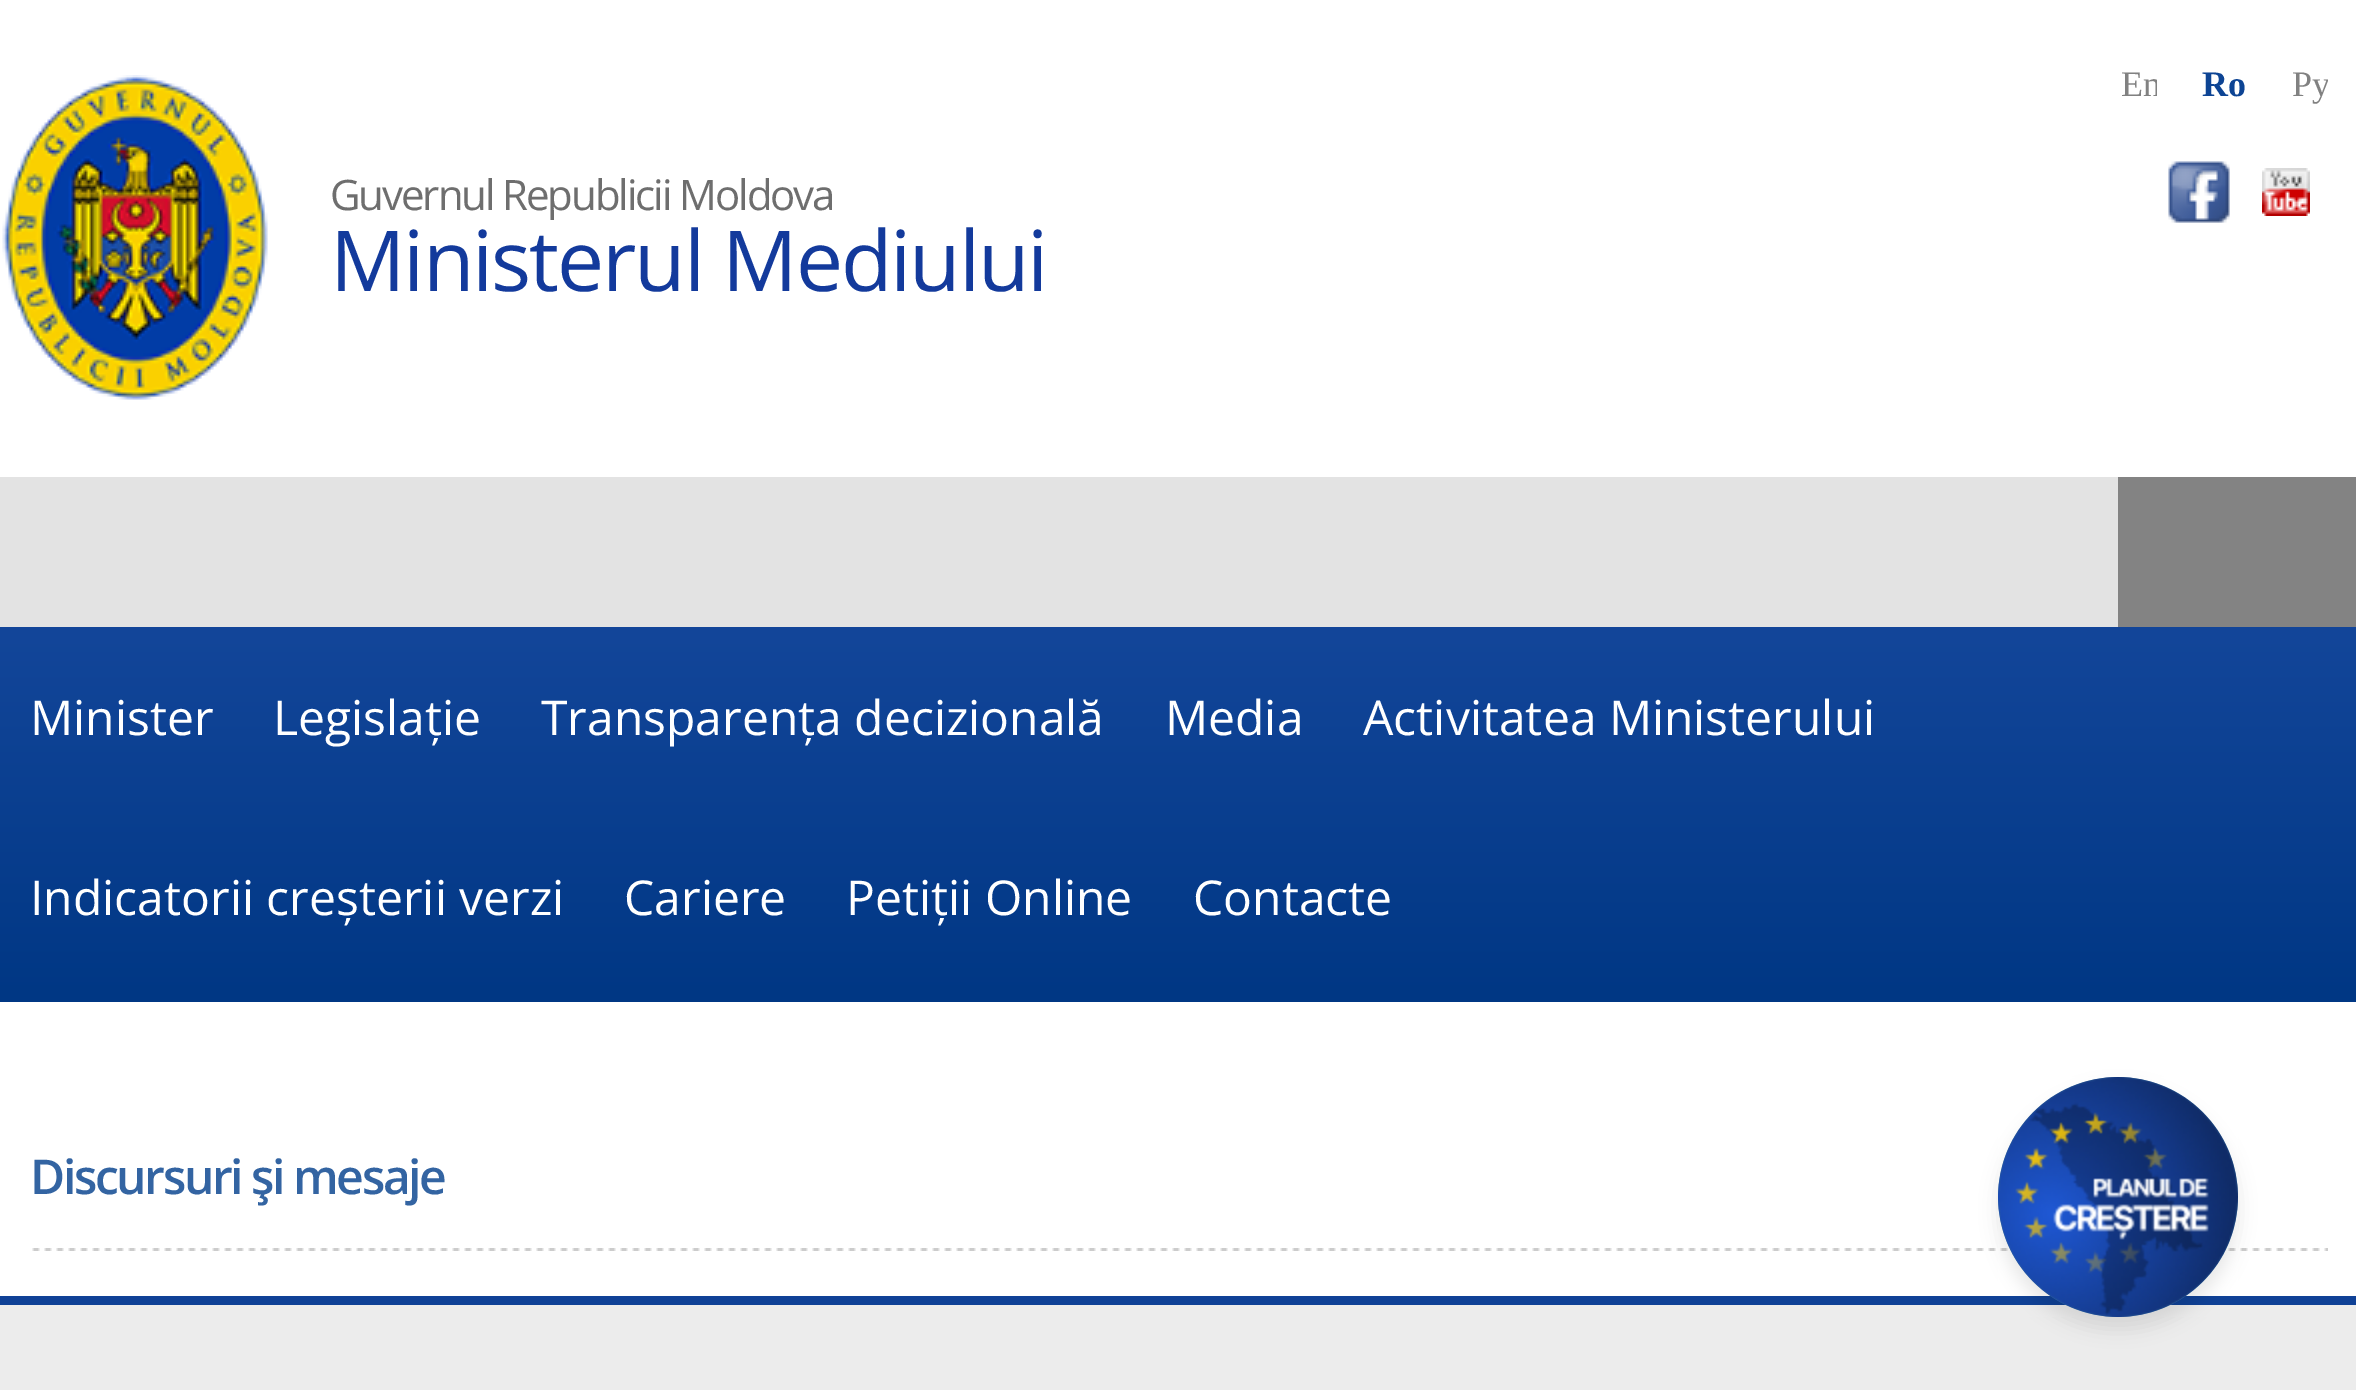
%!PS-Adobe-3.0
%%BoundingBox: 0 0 2356 1390
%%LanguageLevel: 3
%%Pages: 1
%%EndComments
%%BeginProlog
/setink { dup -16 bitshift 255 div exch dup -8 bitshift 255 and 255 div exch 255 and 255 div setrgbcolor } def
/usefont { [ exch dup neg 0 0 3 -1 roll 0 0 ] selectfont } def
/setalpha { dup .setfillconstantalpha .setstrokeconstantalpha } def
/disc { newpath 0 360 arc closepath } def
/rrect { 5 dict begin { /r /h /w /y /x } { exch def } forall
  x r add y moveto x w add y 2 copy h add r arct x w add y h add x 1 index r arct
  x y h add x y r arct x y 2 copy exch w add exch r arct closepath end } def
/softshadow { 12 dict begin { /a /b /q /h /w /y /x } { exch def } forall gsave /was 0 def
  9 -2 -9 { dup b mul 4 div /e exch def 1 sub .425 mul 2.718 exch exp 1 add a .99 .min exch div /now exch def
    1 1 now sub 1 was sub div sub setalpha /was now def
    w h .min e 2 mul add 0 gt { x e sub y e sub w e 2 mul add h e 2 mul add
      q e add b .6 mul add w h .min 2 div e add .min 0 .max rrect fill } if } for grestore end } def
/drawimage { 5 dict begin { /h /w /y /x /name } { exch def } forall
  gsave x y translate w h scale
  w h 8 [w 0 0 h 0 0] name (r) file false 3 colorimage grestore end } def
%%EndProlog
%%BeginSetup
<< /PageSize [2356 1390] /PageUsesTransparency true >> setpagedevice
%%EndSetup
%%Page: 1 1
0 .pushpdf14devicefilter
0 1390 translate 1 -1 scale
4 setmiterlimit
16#FFFFFF setink
0 0 2356 1390 rectfill
gsave
2091 30 66 96 15 rrect clip newpath
/LiberationSerif-Regular 36 usefont
16#818181 setink
2121 96 moveto (En) show
grestore
/LiberationSerif-Bold 36 usefont
16#0D4494 setink
2202 96 moveto (Ro) show
gsave
2262 30 66 96 15 rrect clip newpath
/LiberationSerif-Regular 36 usefont
16#818181 setink
2292 96 moveto (Ру) show
grestore
(img1.raw) 2168 161 62 62 drawimage
(img2.raw) 2262 168 48 48 drawimage
(img3.raw) 2 75 266 325 drawimage
/OpenSans-Regular 42 usefont
16#6E6E6E setink
330 210 moveto -2.1 0 (Guvernul Republicii Moldova) ashow
/OpenSans-Regular 84 usefont
16#133A9C setink
330 291 moveto -2.1 0 (Ministerul Mediului) ashow
16#E3E3E3 setink
0 477 2118 150 rectfill
16#838383 setink
2118 477 238 150 rectfill
gsave 0 627 moveto 2356 627 lineto 2356 1002 lineto 0 1002 lineto closepath clip newpath
<< /ShadingType 2 /ColorSpace /DeviceRGB /Coords [1179 627 1179 1002] /Extend [true true] /Function << /FunctionType 2 /Domain [0 1] /C0 [0.075 0.275 0.604] /C1 [0 0.216 0.518] /N 1 >> >> shfill grestore
/OpenSans-Regular 48 usefont
16#FFFFFF setink
[
    [(Minister) 30 735]
    [(Legislație) 273 735]
    [(Transparența decizională) 541 735]
    [(Media) 1165 735]
    [(Activitatea Ministerului) 1363 735]
    [(Indicatorii creșterii verzi) 30 915]
    [(Cariere) 624 915]
    [(Petiții Online) 846 915]
    [(Contacte) 1193 915]
] { aload pop moveto show } forall
16#0F4196 setink
0 1296 2356 9 rectfill
(img4.raw) 32 1248 2296 3 drawimage
/OpenSans-SemiBold 48 usefont
16#3364A2 setink
30 1194 moveto -2.4 0 (Discursuri şi mesaje) ashow
16#ECECEC setink
0 1305 2356 85 rectfill
16#000000 setink
1998 1089 240 240 120 9 0.1 softshadow
16#336699 setink
2118 1197 120 disc fill
(img5.raw) 1998 1077 240 240 drawimage
.poppdf14devicefilter showpage
%%EOF
